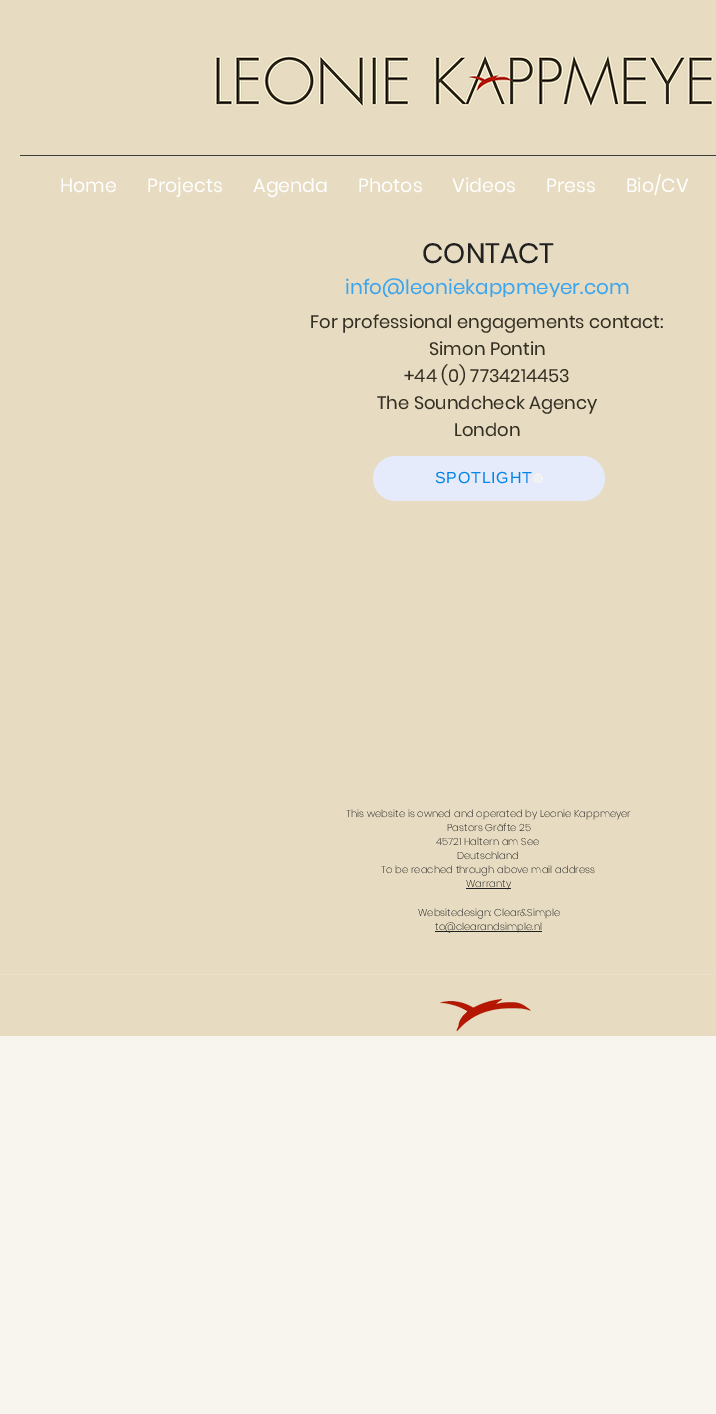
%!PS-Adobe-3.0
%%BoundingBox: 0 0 716 1414
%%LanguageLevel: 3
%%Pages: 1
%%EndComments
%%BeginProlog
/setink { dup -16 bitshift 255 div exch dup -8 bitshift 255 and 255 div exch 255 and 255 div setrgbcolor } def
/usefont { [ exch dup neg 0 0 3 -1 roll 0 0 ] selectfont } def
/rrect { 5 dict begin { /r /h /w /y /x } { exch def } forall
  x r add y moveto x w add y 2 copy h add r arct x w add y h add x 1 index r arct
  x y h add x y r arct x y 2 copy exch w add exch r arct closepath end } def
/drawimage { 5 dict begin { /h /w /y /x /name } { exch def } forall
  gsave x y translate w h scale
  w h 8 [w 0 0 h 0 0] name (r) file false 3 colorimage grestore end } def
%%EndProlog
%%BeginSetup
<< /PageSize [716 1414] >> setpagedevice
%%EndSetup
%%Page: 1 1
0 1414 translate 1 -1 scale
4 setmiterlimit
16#F7F5EE setink
0 0 716 1414 rectfill
16#E7DCC1 setink
0 0 716 974 rectfill
(img1.raw) 215 55 499 52 drawimage
16#3E3C38 setink
20 155 696 1 rectfill
/Poppins-Regular 19 usefont
16#FFFFFF setink
[
    [(Home) 60 192]
    [(Projects) 147 192]
    [(Agenda) 253 192]
    [(Photos) 358 192]
    [(Videos) 452 192]
    [(Press) 546 192]
    [(Bio/CV) 626 192]
] { aload pop moveto show } forall
/Poppins-Regular 28 usefont
16#202020 setink
422 263 moveto (CONTACT) show
gsave
345 277 289 20 rectclip
/Poppins-Regular 20 usefont
16#3CA5F0 setink
345 294 moveto (info@leoniekappmeyer.com) show
grestore
/Poppins-Regular 18 usefont
16#342F23 setink
[
    [(For professional engagements contact:) 310 328]
    [(Simon Pontin) 429 355]
    [(+44 \(0\) 7734214453) 404 382]
    [(The Soundcheck Agency) 377 409]
    [(London) 454 436]
] { aload pop moveto show } forall
16#E5EBFA setink
373 456 232 45 22.5 rrect fill
/LiberationSans-Regular 16 usefont
16#0184E6 setink
435 483 moveto 0.75 0 (SPOTLIGHT) ashow
(img2.raw) 533 473 10 10 drawimage
/Poppins-ExtraLight 10 usefont
16#202020 setink
[
    [(This website is owned and operated by Leonie Kappmeyer) 346 817]
    [(Pastors Gräfte 25) 447 831]
    [(45721 Haltern am See) 436 845]
    [(Deutschland) 457 859]
    [(To be reached through above mail address) 381 873]
] { aload pop moveto show } forall
466 888 45 1 rectfill
466 887 moveto (Warranty) show
418 916 moveto (Websitedesign: Clear&Simple) show
435 931 107 1 rectfill
435 930 moveto (to@clearandsimple.nl) show
16#E7DCC1 setink
0 975 716 61 rectfill
16#E9E0C8 setink
0 974 716 1 rectfill
(img3.raw) 440 998 91 34 drawimage
showpage
%%EOF
